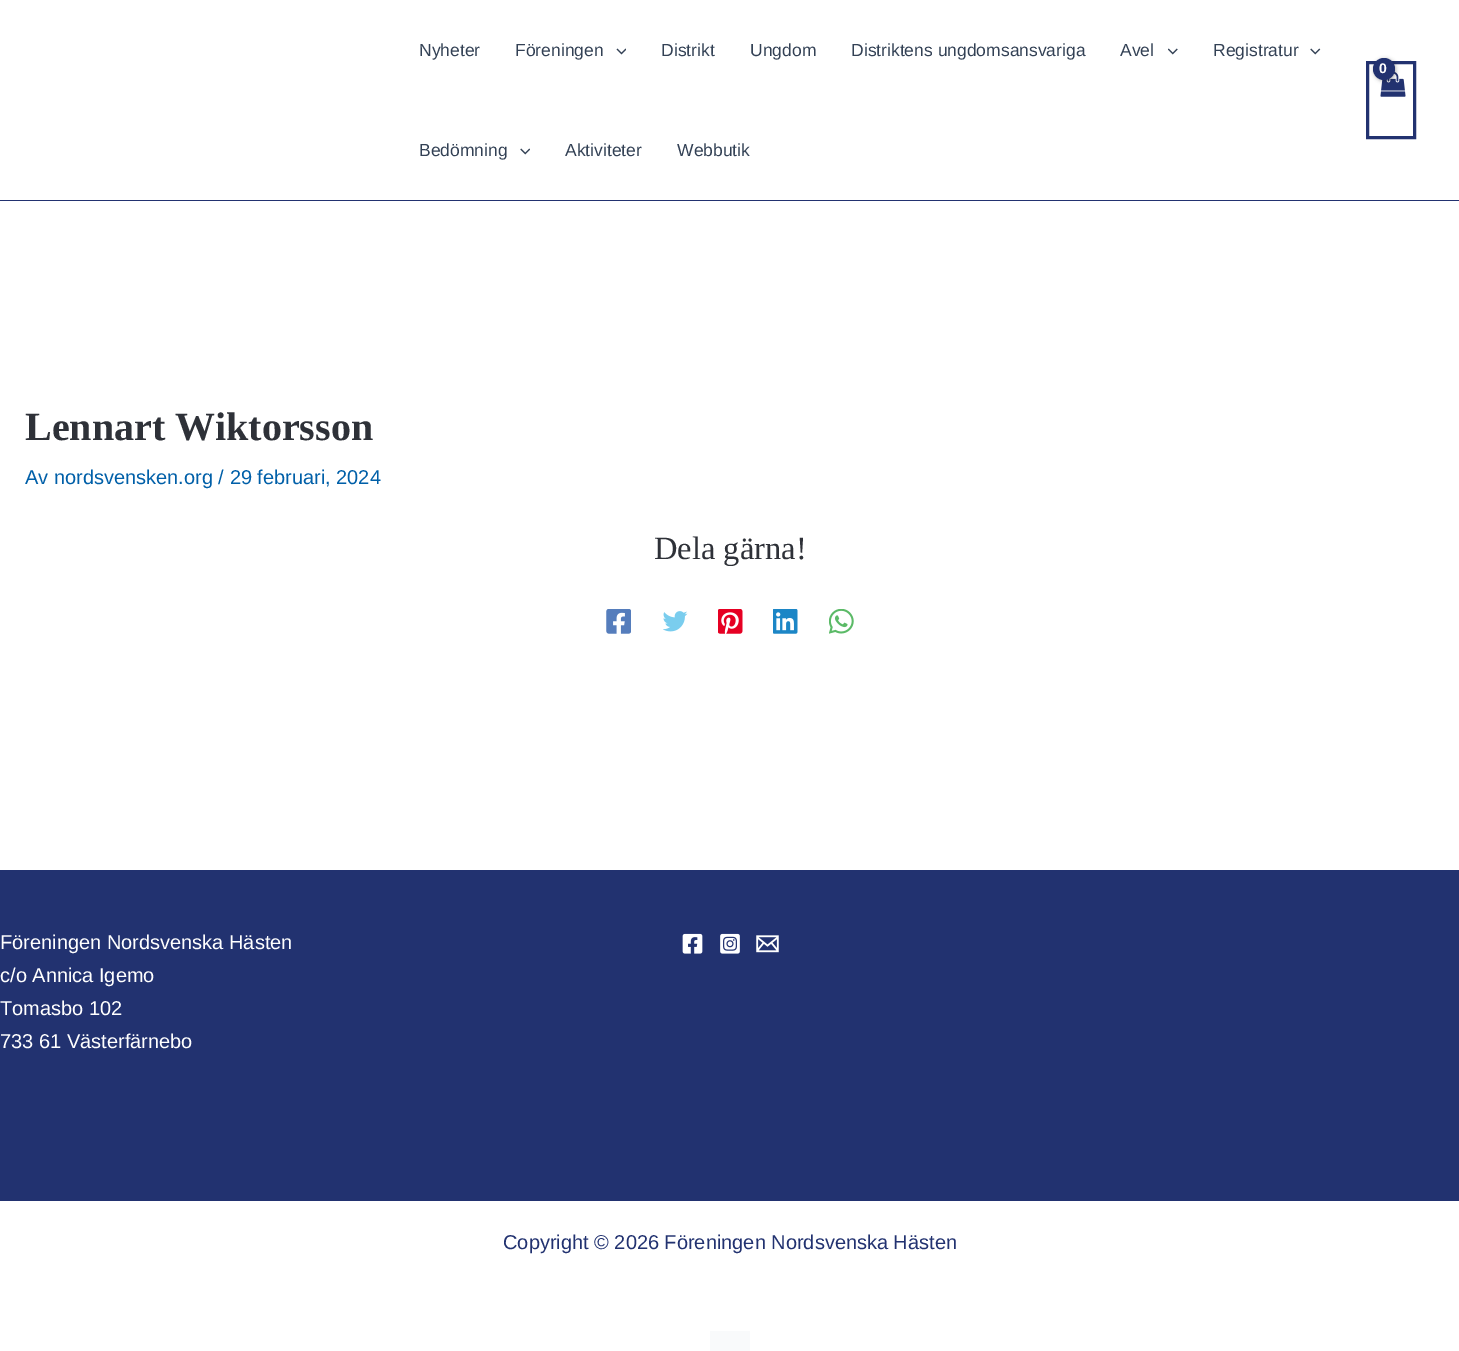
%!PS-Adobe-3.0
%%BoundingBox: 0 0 1459 1351
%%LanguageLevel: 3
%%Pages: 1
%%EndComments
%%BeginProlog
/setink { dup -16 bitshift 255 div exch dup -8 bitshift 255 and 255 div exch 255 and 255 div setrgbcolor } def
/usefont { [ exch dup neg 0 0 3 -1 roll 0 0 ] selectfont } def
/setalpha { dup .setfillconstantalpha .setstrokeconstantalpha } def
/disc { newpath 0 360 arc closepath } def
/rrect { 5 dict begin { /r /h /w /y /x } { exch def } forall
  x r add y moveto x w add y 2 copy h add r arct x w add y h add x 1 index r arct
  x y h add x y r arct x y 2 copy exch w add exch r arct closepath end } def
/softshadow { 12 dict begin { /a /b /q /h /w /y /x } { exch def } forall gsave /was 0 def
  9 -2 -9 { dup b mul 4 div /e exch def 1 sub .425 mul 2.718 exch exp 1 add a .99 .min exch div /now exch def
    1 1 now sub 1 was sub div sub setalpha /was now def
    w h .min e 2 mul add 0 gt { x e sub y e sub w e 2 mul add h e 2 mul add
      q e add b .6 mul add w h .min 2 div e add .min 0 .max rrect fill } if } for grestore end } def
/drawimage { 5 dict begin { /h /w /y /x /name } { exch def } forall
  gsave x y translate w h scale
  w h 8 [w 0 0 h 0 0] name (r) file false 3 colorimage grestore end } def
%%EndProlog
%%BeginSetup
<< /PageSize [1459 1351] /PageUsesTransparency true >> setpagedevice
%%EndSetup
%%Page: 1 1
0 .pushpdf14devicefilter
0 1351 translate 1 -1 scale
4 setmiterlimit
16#FFFFFF setink
0 0 1459 1351 rectfill
16#223270 setink
0 200 1459 1 rectfill
/LiberationSans-Regular 17.5 usefont
16#334155 setink
419 56 moveto (Nyheter) show
515 56 moveto (Föreningen) show
(img1.raw) 616 48 10 7 drawimage
[
    [(Distrikt) 661 56]
    [(Ungdom) 750 56]
    [(Distriktens ungdomsansvariga) 851 56]
    [(Avel) 1120 56]
] { aload pop moveto show } forall
(img2.raw) 1168 48 10 7 drawimage
1213 56 moveto (Registratur) show
(img3.raw) 1310 48 11 7 drawimage
419 156 moveto (Bedömning) show
(img4.raw) 520 148 10 7 drawimage
565 156 moveto (Aktiviteter) show
677 156 moveto (Webbutik) show
16#223270 setink
3 setlinewidth
1367.5 62.5 47 75 rectstroke
(img5.raw) 1380 71 26 26 drawimage
16#000000 setink
1374 59 22 22 11 2 0.3 softshadow
16#223270 setink
1384 69 11 disc fill
/LiberationSans-Bold 14 usefont
16#FFFFFF setink
1379 73 moveto -1 0 (0) ashow
/LiberationSerif-Bold 40 usefont
16#2E3138 setink
25 440 moveto (Lennart Wiktorsson) show
/LiberationSans-Regular 20 usefont
16#005FA8 setink
25 484 moveto (Av nordsvensken.org / 29 februari, 2024) show
/LiberationSerif-Regular 32.5 usefont
16#2E3138 setink
654 559 moveto (Dela gärna!) show
(img6.raw) 606 609 25 25 drawimage
(img7.raw) 663 611 25 21 drawimage
(img8.raw) 718 609 25 25 drawimage
(img9.raw) 773 609 25 25 drawimage
(img10.raw) 829 609 25 25 drawimage
16#223270 setink
0 870 1459 331 rectfill
/LiberationSans-Regular 20 usefont
16#FFFFFF setink
[
    [(Föreningen Nordsvenska Hästen) 0 949]
    [(c/o Annica Igemo) 0 982]
    [(Tomasbo 102) 0 1015]
    [(733 61 Västerfärnebo) 0 1048]
] { aload pop moveto show } forall
(img11.raw) 682 933 21 21 drawimage
(img12.raw) 720 933 20 21 drawimage
(img13.raw) 756 935 23 18 drawimage
16#223270 setink
503 1249 moveto (Copyright © 2026 Föreningen Nordsvenska Hästen) show
16#F9FAFB setink
710 1331 40 20 rectfill
.poppdf14devicefilter showpage
%%EOF
